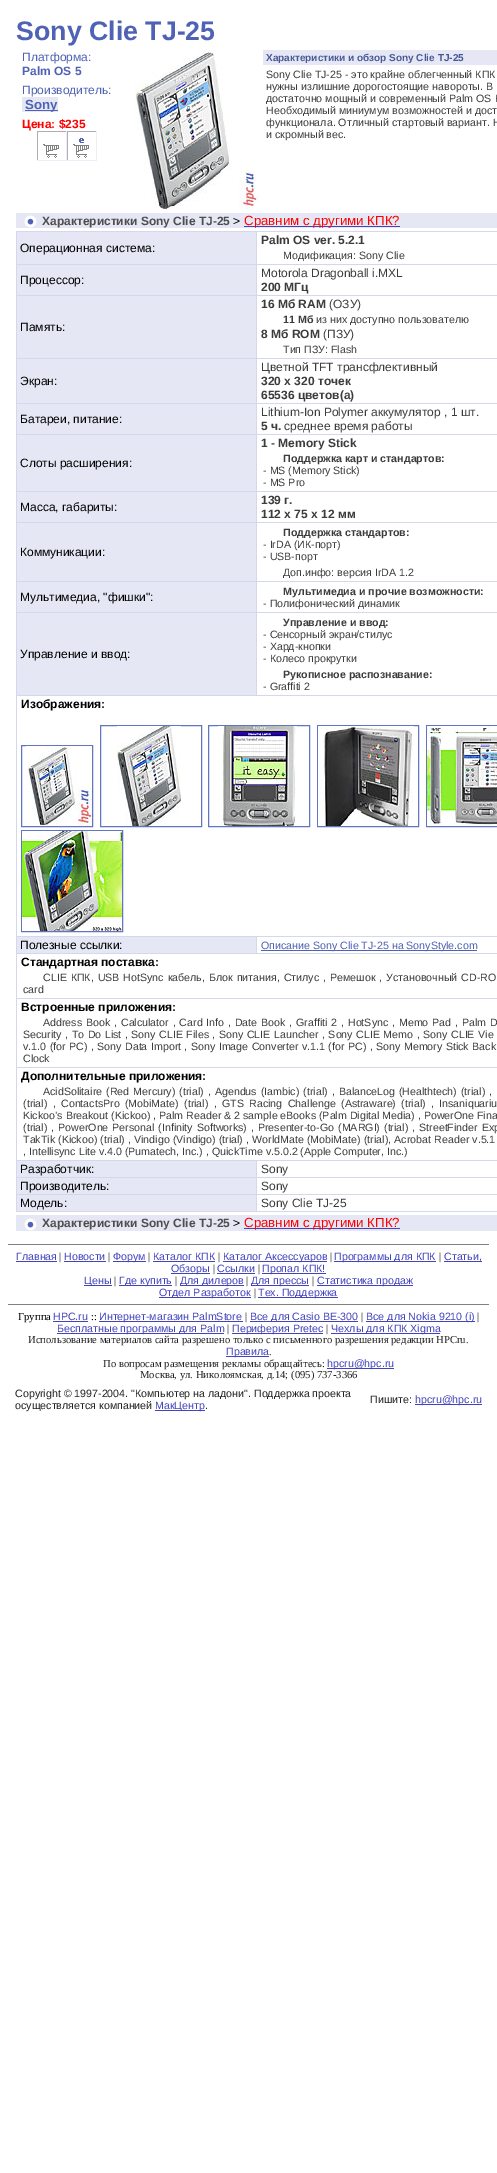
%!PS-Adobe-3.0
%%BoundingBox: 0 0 497 2173
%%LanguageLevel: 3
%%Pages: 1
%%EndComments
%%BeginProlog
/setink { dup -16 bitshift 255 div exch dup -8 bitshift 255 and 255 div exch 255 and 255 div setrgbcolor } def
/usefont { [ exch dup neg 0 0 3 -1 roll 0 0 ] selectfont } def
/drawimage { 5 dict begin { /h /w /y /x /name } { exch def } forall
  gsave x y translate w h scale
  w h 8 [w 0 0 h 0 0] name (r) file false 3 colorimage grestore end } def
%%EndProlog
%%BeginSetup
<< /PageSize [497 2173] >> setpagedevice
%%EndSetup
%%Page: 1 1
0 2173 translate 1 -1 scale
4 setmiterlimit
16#FFFFFF setink
0 0 497 2173 rectfill
/LiberationSans-Bold 26.75 usefont
16#4F62B5 setink
16 40 moveto (Sony Clie TJ-25) show
/LiberationSans-Regular 12 usefont
22 61 moveto (Платформа:) show
/LiberationSans-Bold 12 usefont
22 75 moveto (Palm OS 5) show
/LiberationSans-Regular 12 usefont
22 94 moveto (Производитель:) show
16#E5E8F4 setink
22 97 36 15 rectfill
16#4F62B5 setink
25 110 33 1 rectfill
/LiberationSans-Bold 13.25 usefont
25 109 moveto (Sony) show
/LiberationSans-Bold 12 usefont
16#FF0000 setink
22 128 moveto (Цена: $235) show
(img1.raw) 37 131 30 30 drawimage
(img2.raw) 67 131 30 30 drawimage
(img3.raw) 135 50 124 160 drawimage
16#E5E8F4 setink
263 50 234 15 rectfill
/LiberationSans-Bold 10 usefont
16#485796 setink
266 61 moveto (Характеристики и обзор Sony Clie TJ-25) show
/LiberationSans-Regular 10.65 usefont
16#3C3C3C setink
[
    [(Sony Clie TJ-25 - это крайне облегченный КПК) 266 78]
    [(нужны излишние дорогостоящие навороты. В) 266 90]
    [(достаточно мощный и современный Palm OS К) 266 102]
    [(Необходимый миниумум возможностей и дост) 266 114]
    [(функционала. Отличный стартовый вариант. Н) 266 126]
    [(и скромный вес.) 266 138]
] { aload pop moveto show } forall
16#E5E8F4 setink
16 213 481 15 rectfill
(img4.raw) 24 215 13 13 drawimage
/LiberationSans-Bold 12 usefont
16#4E4E4E setink
42 225 moveto (Характеристики Sony Clie TJ-25) show
/LiberationSans-Regular 12 usefont
16#000000 setink
233 225 moveto (>) show
16#4343BC setink
244 226 156 1 rectfill
/LiberationSans-Regular 13.25 usefont
16#FF0000 setink
244 225 moveto (Сравним с другими КПК?) show
16#D3D8EC setink
16 231 481 981 rectfill
16#E5E8F4 setink
17 232 239 32 rectfill
/LiberationSans-Regular 12 usefont
16#000000 setink
20 252 moveto (Операционная система:) show
16#FFFFFF setink
257 232 240 32 rectfill
/LiberationSans-Bold 12 usefont
16#3C3C3C setink
261 244 moveto (Palm OS ver. 5.2.1) show
/LiberationSans-Regular 10.65 usefont
283 259 moveto (Модификация: Sony Clie) show
16#E5E8F4 setink
17 265 239 30 rectfill
/LiberationSans-Regular 12 usefont
16#000000 setink
20 284 moveto (Процессор:) show
16#FFFFFF setink
257 265 240 30 rectfill
16#3C3C3C setink
261 277 moveto (Motorola Dragonball i.MXL) show
/LiberationSans-Bold 12 usefont
261 291 moveto (200 МГц) show
16#E5E8F4 setink
17 296 239 62 rectfill
/LiberationSans-Regular 12 usefont
16#000000 setink
20 331 moveto (Память:) show
16#FFFFFF setink
257 296 240 62 rectfill
/LiberationSans-Bold 12 usefont
16#3C3C3C setink
261 308 moveto (16 Мб RAM) show
/LiberationSans-Regular 12 usefont
329 308 moveto (\(ОЗУ\)) show
/LiberationSans-Bold 10.65 usefont
283 323 moveto (11 Мб) show
/LiberationSans-Regular 10.65 usefont
316 323 moveto (из них доступно пользователю) show
/LiberationSans-Bold 12 usefont
261 338 moveto (8 Мб ROM) show
/LiberationSans-Regular 12 usefont
323 338 moveto (\(ПЗУ\)) show
/LiberationSans-Regular 10.65 usefont
283 353 moveto (Тип ПЗУ: Flash) show
16#E5E8F4 setink
17 359 239 44 rectfill
/LiberationSans-Regular 12 usefont
16#000000 setink
20 385 moveto (Экран:) show
16#FFFFFF setink
257 359 240 44 rectfill
16#3C3C3C setink
261 371 moveto (Цветной TFT трансфлективный) show
/LiberationSans-Bold 12 usefont
261 385 moveto (320 x 320 точек) show
261 399 moveto (65536 цветов\(а\)) show
16#E5E8F4 setink
17 404 239 30 rectfill
/LiberationSans-Regular 12 usefont
16#000000 setink
20 423 moveto (Батареи, питание:) show
16#FFFFFF setink
257 404 240 30 rectfill
16#3C3C3C setink
261 416 moveto (Lithium-Ion Polymer аккумулятор , 1 шт.) show
/LiberationSans-Bold 12 usefont
261 430 moveto (5 ч.) show
/LiberationSans-Regular 12 usefont
284 430 moveto (среднее время работы) show
16#E5E8F4 setink
17 435 239 56 rectfill
16#000000 setink
20 467 moveto (Слоты расширения:) show
16#FFFFFF setink
257 435 240 56 rectfill
/LiberationSans-Bold 12 usefont
16#3C3C3C setink
261 447 moveto (1 - Memory Stick) show
/LiberationSans-Bold 10.65 usefont
283 462 moveto (Поддержка карт и стандартов:) show
/LiberationSans-Regular 10.65 usefont
263 474 moveto (- MS \(Memory Stick\)) show
263 486 moveto (- MS Pro) show
16#E5E8F4 setink
17 492 239 30 rectfill
/LiberationSans-Regular 12 usefont
16#000000 setink
20 511 moveto (Масса, габариты:) show
16#FFFFFF setink
257 492 240 30 rectfill
/LiberationSans-Bold 12 usefont
16#3C3C3C setink
261 504 moveto (139 г.) show
261 518 moveto (112 x 75 x 12 мм) show
16#E5E8F4 setink
17 523 239 58 rectfill
/LiberationSans-Regular 12 usefont
16#000000 setink
20 556 moveto (Коммуникации:) show
16#FFFFFF setink
257 523 240 58 rectfill
/LiberationSans-Bold 10.65 usefont
16#3C3C3C setink
283 536 moveto (Поддержка стандартов:) show
/LiberationSans-Regular 10.65 usefont
[
    [(- IrDA \(ИК-порт\)) 263 548]
    [(- USB-порт) 263 560]
    [(Доп.инфо: версия IrDA 1.2) 283 576]
] { aload pop moveto show } forall
16#E5E8F4 setink
17 582 239 30 rectfill
/LiberationSans-Regular 12 usefont
16#000000 setink
20 601 moveto (Мультимедиа, "фишки":) show
16#FFFFFF setink
257 582 240 30 rectfill
/LiberationSans-Bold 10.65 usefont
16#3C3C3C setink
283 595 moveto (Мультимедиа и прочие возможности:) show
/LiberationSans-Regular 10.65 usefont
263 607 moveto (- Полифонический динамик) show
16#E5E8F4 setink
17 613 239 82 rectfill
/LiberationSans-Regular 12 usefont
16#000000 setink
20 658 moveto (Управление и ввод:) show
16#FFFFFF setink
257 613 240 82 rectfill
/LiberationSans-Bold 10.65 usefont
16#3C3C3C setink
283 626 moveto (Управление и ввод:) show
/LiberationSans-Regular 10.65 usefont
[
    [(- Сенсорный экран/стилус) 263 638]
    [(- Хард-кнопки) 263 650]
    [(- Колесо прокрутки) 263 662]
] { aload pop moveto show } forall
/LiberationSans-Bold 10.65 usefont
283 678 moveto (Рукописное распознавание:) show
/LiberationSans-Regular 10.65 usefont
263 690 moveto (- Graffiti 2) show
16#FFFFFF setink
17 696 480 240 rectfill
/LiberationSans-Bold 12 usefont
16#000000 setink
21 708 moveto (Изображения:) show
16#6275C1 setink
100.5 725.5 101 101 rectstroke
208.5 725.5 101 101 rectstroke
317.5 725.5 101 101 rectstroke
426.5 725.5 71 101 rectstroke
21.5 745.5 71 81 rectstroke
(img5.raw) 117 726 64 100 drawimage
(img6.raw) 218 726 79 100 drawimage
(img7.raw) 318 726 96 100 drawimage
(img8.raw) 427 726 70 100 drawimage
(img9.raw) 26 746 66 80 drawimage
21.5 830.5 101 101 rectstroke
(img10.raw) 22 831 100 100 drawimage
16#E5E8F4 setink
17 937 239 16 rectfill
/LiberationSans-Regular 12 usefont
16#000000 setink
20 949 moveto (Полезные ссылки:) show
16#FFFFFF setink
257 937 240 16 rectfill
16#4F62B5 setink
261 950 216 1 rectfill
/LiberationSans-Regular 10.65 usefont
261 949 moveto (Описание Sony Clie TJ-25 на SonyStyle.com) show
16#FFFFFF setink
17 954 480 44 rectfill
/LiberationSans-Bold 12 usefont
16#000000 setink
21 966 moveto (Стандартная поставка:) show
/LiberationSans-Regular 10.65 usefont
16#3C3C3C setink
43 981 moveto 1 0 32 (CLIE КПК, USB HotSync кабель, Блок питания, Стилус , Ремешок , Установочный CD-RO) widthshow
23 993 moveto (card) show
16#FFFFFF setink
17 999 480 68 rectfill
/LiberationSans-Bold 12 usefont
16#000000 setink
21 1011 moveto (Встроенные приложения:) show
/LiberationSans-Regular 10.65 usefont
16#3C3C3C setink
43 1026 moveto 0.9 0 32 (Address Book , Calculator , Card Info , Date Book , Graffiti 2 , HotSync , Memo Pad , Palm D) widthshow
23 1038 moveto 0.6 0 32 (Security , To Do List , Sony CLIE Files , Sony CLIE Launcher , Sony CLIE Memo , Sony CLIE Vie) widthshow
23 1050 moveto 0.5 0 32 (v.1.0 \(for PC\) , Sony Data Import , Sony Image Converter v.1.1 \(for PC\) , Sony Memory Stick Back) widthshow
23 1062 moveto (Clock) show
16#FFFFFF setink
17 1068 480 92 rectfill
/LiberationSans-Bold 12 usefont
16#000000 setink
21 1080 moveto (Дополнительные приложения:) show
/LiberationSans-Regular 10.65 usefont
16#3C3C3C setink
43 1095 moveto 1.1 0 32 (AcidSolitaire \(Red Mercury\) \(trial\) , Agendus \(Iambic\) \(trial\) , BalanceLog \(Healthtech\) \(trial\) ,) widthshow
23 1107 moveto 2.4 0 32 (\(trial\) , ContactsPro \(MobiMate\) \(trial\) , GTS Racing Challenge \(Astraware\) \(trial\) , Insaniquariu) widthshow
23 1119 moveto (Kickoo’s Breakout \(Kickoo\) , Palm Reader & 2 sample eBooks \(Palm Digital Media\) , PowerOne Fina) show
23 1131 moveto 1 0 32 (\(trial\) , PowerOne Personal \(Infinity Softworks\) , Presenter-to-Go \(MARGI\) \(trial\) , StreetFinder Exp) widthshow
23 1143 moveto 0.25 0 32 (TakTik \(Kickoo\) \(trial\) , Vindigo \(Vindigo\) \(trial\) , WorldMate \(MobiMate\) \(trial\), Acrobat Reader v.5.1) widthshow
23 1155 moveto (, Intellisync Lite v.4.0 \(Pumatech, Inc.\) , QuickTime v.5.0.2 \(Apple Computer, Inc.\)) show
16#E5E8F4 setink
17 1161 239 16 rectfill
/LiberationSans-Regular 12 usefont
16#000000 setink
20 1173 moveto (Разработчик:) show
16#FFFFFF setink
257 1161 240 16 rectfill
16#3C3C3C setink
261 1173 moveto (Sony) show
16#E5E8F4 setink
17 1178 239 16 rectfill
16#000000 setink
20 1190 moveto (Производитель:) show
16#FFFFFF setink
257 1178 240 16 rectfill
16#3C3C3C setink
261 1190 moveto (Sony) show
16#E5E8F4 setink
17 1195 239 16 rectfill
16#000000 setink
20 1207 moveto (Модель:) show
16#FFFFFF setink
257 1195 240 16 rectfill
16#3C3C3C setink
261 1207 moveto (Sony Clie TJ-25) show
16#E5E8F4 setink
16 1215 481 16 rectfill
(img4.raw) 24 1218 13 13 drawimage
/LiberationSans-Bold 12 usefont
16#4E4E4E setink
42 1227 moveto (Характеристики Sony Clie TJ-25) show
/LiberationSans-Regular 12 usefont
16#000000 setink
233 1227 moveto (>) show
16#4343BC setink
244 1228 156 1 rectfill
/LiberationSans-Regular 13.25 usefont
16#FF0000 setink
244 1227 moveto (Сравним с другими КПК?) show
16#808080 setink
8 1244 481 1 rectfill
/LiberationSans-Regular 10.65 usefont
16#4343BC setink
16 1260 moveto (Главная) show
16 1261 41 1 rectfill
/LiberationSerif-Regular 10.65 usefont
16#000000 setink
59 1260 moveto (|) show
/LiberationSans-Regular 10.65 usefont
16#4343BC setink
64 1260 moveto (Новости) show
64 1261 42 1 rectfill
/LiberationSerif-Regular 10.65 usefont
16#000000 setink
108 1260 moveto (|) show
16#4343BC setink
113 1261 33 1 rectfill
/LiberationSans-Regular 10.65 usefont
113 1260 moveto (Форум) show
/LiberationSerif-Regular 10.65 usefont
16#000000 setink
148 1260 moveto (|) show
/LiberationSans-Regular 10.65 usefont
16#4343BC setink
153 1260 moveto (Каталог КПК) show
153 1261 62 1 rectfill
/LiberationSerif-Regular 10.65 usefont
16#000000 setink
218 1260 moveto (|) show
16#4343BC setink
223 1261 104 1 rectfill
/LiberationSans-Regular 10.65 usefont
223 1260 moveto (Каталог Аксессуаров) show
/LiberationSerif-Regular 10.65 usefont
16#000000 setink
330 1260 moveto (|) show
16#4343BC setink
334 1261 102 1 rectfill
/LiberationSans-Regular 10.65 usefont
334 1260 moveto (Программы для КПК) show
/LiberationSerif-Regular 10.65 usefont
16#000000 setink
439 1260 moveto (|) show
16#4343BC setink
444 1261 38 1 rectfill
/LiberationSans-Regular 10.65 usefont
444 1260 moveto (Статьи,) show
171 1273 39 1 rectfill
171 1272 moveto (Обзоры) show
/LiberationSerif-Regular 10.65 usefont
16#000000 setink
213 1272 moveto (|) show
/LiberationSans-Regular 10.65 usefont
16#4343BC setink
217 1272 moveto (Ссылки) show
217 1273 38 1 rectfill
/LiberationSerif-Regular 10.65 usefont
16#000000 setink
258 1272 moveto (|) show
16#4343BC setink
262 1273 64 1 rectfill
/LiberationSans-Regular 10.65 usefont
262 1272 moveto (Пропал КПК!) show
84 1285 28 1 rectfill
84 1284 moveto (Цены) show
/LiberationSerif-Regular 10.65 usefont
16#000000 setink
114 1284 moveto (|) show
16#4343BC setink
119 1285 53 1 rectfill
/LiberationSans-Regular 10.65 usefont
119 1284 moveto (Где купить) show
/LiberationSerif-Regular 10.65 usefont
16#000000 setink
175 1284 moveto (|) show
16#4343BC setink
180 1285 64 1 rectfill
/LiberationSans-Regular 10.65 usefont
180 1284 moveto (Для дилеров) show
/LiberationSerif-Regular 10.65 usefont
16#000000 setink
246 1284 moveto (|) show
16#4343BC setink
251 1285 58 1 rectfill
/LiberationSans-Regular 10.65 usefont
251 1284 moveto (Для прессы) show
/LiberationSerif-Regular 10.65 usefont
16#000000 setink
312 1284 moveto (|) show
16#4343BC setink
317 1285 96 1 rectfill
/LiberationSans-Regular 10.65 usefont
317 1284 moveto (Статистика продаж) show
159 1297 92 1 rectfill
159 1296 moveto (Отдел Разработок) show
/LiberationSerif-Regular 10.65 usefont
16#000000 setink
254 1296 moveto (|) show
16#4343BC setink
258 1297 80 1 rectfill
/LiberationSans-Regular 10.65 usefont
258 1296 moveto (Тех. Поддержка) show
16#808080 setink
8 1304 481 1 rectfill
/LiberationSerif-Regular 10.65 usefont
16#000000 setink
18 1320 moveto (Группа) show
/LiberationSans-Regular 10.65 usefont
16#4343BC setink
53 1320 moveto (HPC.ru) show
53 1321 35 1 rectfill
/LiberationSerif-Regular 10.65 usefont
16#000000 setink
91 1320 moveto (::) show
16#4343BC setink
99 1321 144 1 rectfill
/LiberationSans-Regular 10.65 usefont
99 1320 moveto (Интернет-магазин PalmStore) show
/LiberationSerif-Regular 10.65 usefont
16#000000 setink
245 1320 moveto (|) show
16#4343BC setink
250 1321 108 1 rectfill
/LiberationSans-Regular 10.65 usefont
250 1320 moveto (Все для Casio BE-300) show
/LiberationSerif-Regular 10.65 usefont
16#000000 setink
361 1320 moveto (|) show
16#4343BC setink
366 1321 109 1 rectfill
/LiberationSans-Regular 10.65 usefont
366 1320 moveto (Все для Nokia 9210 \(i\)) show
/LiberationSerif-Regular 10.65 usefont
16#000000 setink
477 1320 moveto (|) show
16#4343BC setink
57 1333 167 1 rectfill
/LiberationSans-Regular 10.65 usefont
57 1332 moveto (Бесплатные программы для Palm) show
/LiberationSerif-Regular 10.65 usefont
16#000000 setink
227 1332 moveto (|) show
16#4343BC setink
232 1333 91 1 rectfill
/LiberationSans-Regular 10.65 usefont
232 1332 moveto (Периферия Pretec) show
/LiberationSerif-Regular 10.65 usefont
16#000000 setink
326 1332 moveto (|) show
16#4343BC setink
331 1333 109 1 rectfill
/LiberationSans-Regular 10.65 usefont
331 1332 moveto (Чехлы для КПК Xigma) show
/LiberationSerif-Regular 10.65 usefont
16#222222 setink
28 1343 moveto (Использование материалов сайта разрешено только с письменного разрешения редакции HPCru.) show
16#4343BC setink
226 1356 43 1 rectfill
/LiberationSans-Regular 10.65 usefont
226 1355 moveto (Правила) show
/LiberationSerif-Regular 10.65 usefont
16#222222 setink
269 1355 moveto (.) show
103 1367 moveto (По вопросам размещения рекламы обращайтесь:) show
16#4343BC setink
327 1368 67 1 rectfill
/LiberationSans-Regular 10.65 usefont
327 1367 moveto (hpcru@hpc.ru) show
/LiberationSerif-Regular 10.65 usefont
16#222222 setink
140 1378 moveto (Москва, ул. Николоямская, д.14; \(095\) 737-3366) show
/LiberationSans-Regular 10.65 usefont
15 1397 moveto (Copyright © 1997-2004. "Компьютер на ладони". Поддержка проекта) show
15 1409 moveto (осуществляется компанией) show
16#4343BC setink
155 1410 50 1 rectfill
155 1409 moveto (МакЦентр) show
16#222222 setink
205 1409 moveto (.) show
370 1403 moveto (Пишите:) show
16#4343BC setink
415 1404 67 1 rectfill
415 1403 moveto (hpcru@hpc.ru) show
showpage
%%EOF
